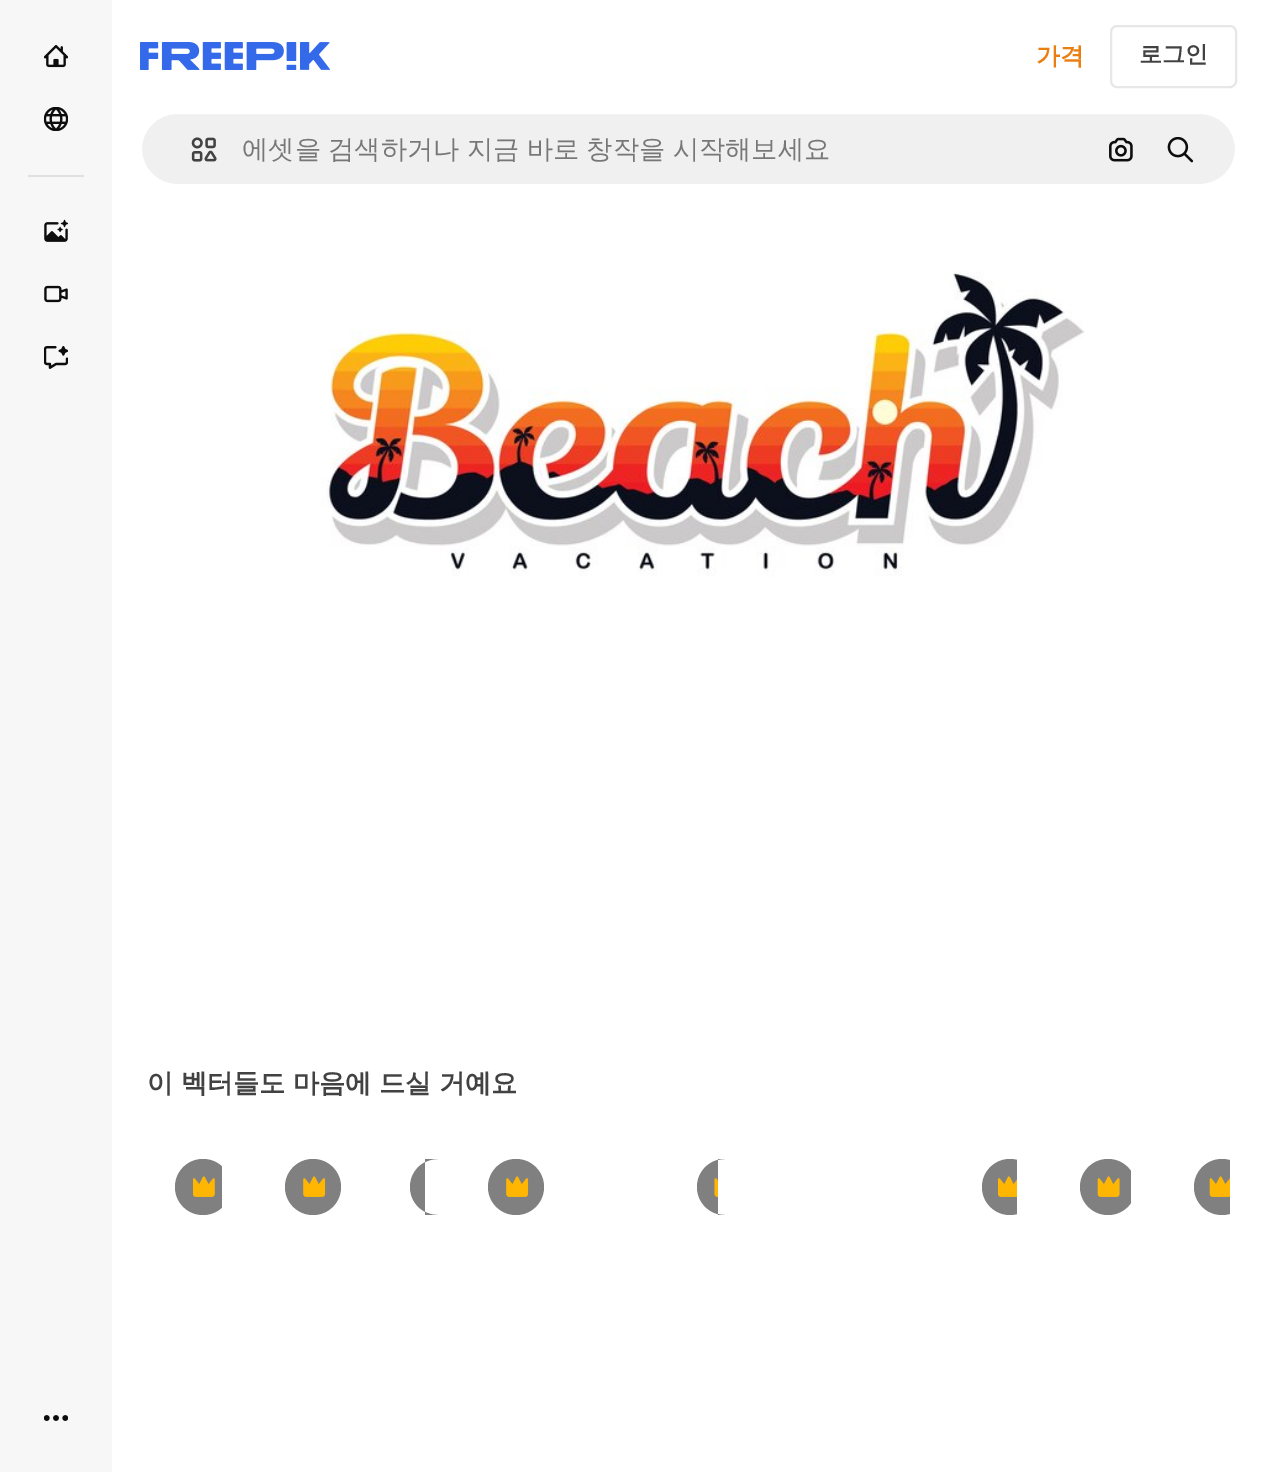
%!PS-Adobe-3.0
%%BoundingBox: 0 0 1265 1472
%%LanguageLevel: 3
%%Pages: 1
%%EndComments
%%BeginProlog
/setink { dup -16 bitshift 255 div exch dup -8 bitshift 255 and 255 div exch 255 and 255 div setrgbcolor } def
/usefont { [ exch dup neg 0 0 3 -1 roll 0 0 ] selectfont } def
/disc { newpath 0 360 arc closepath } def
/rrect { 5 dict begin { /r /h /w /y /x } { exch def } forall
  x r add y moveto x w add y 2 copy h add r arct x w add y h add x 1 index r arct
  x y h add x y r arct x y 2 copy exch w add exch r arct closepath end } def
/drawimage { 5 dict begin { /h /w /y /x /name } { exch def } forall
  gsave x y translate w h scale
  w h 8 [w 0 0 h 0 0] name (r) file false 3 colorimage grestore end } def
%%EndProlog
%%BeginSetup
<< /PageSize [1265 1472] >> setpagedevice
%%EndSetup
%%Page: 1 1
0 1472 translate 1 -1 scale
4 setmiterlimit
16#FFFFFF setink
0 0 1265 1472 rectfill
16#F7F7F7 setink
0 0 112 1472 rectfill
(img1.raw) 44 45 24 23 drawimage
(img2.raw) 44 107 24 24 drawimage
16#E0E0E0 setink
28 175 56 2 rectfill
(img3.raw) 44 219 24 23 drawimage
(img4.raw) 44 285 24 18 drawimage
(img5.raw) 44 346 24 23 drawimage
(img6.raw) 44 1415 24 6 drawimage
(img7.raw) 140 42 190 28 drawimage
/WenQuanYiZenHei-Bold 24 usefont
16#EA7E11 setink
1036 64 moveto (가격) show
16#E7E7E7 setink
2 setlinewidth
1111 26 125 61 6 rrect stroke
/WenQuanYiZenHei-Bold 23 usefont
16#424242 setink
1139 62 moveto (로그인) show
16#F0F0F0 setink
141 113 1095 72 36 rrect gsave fill grestore
16#FFFFFF setink
stroke
(img8.raw) 191 137 26 25 drawimage
/WenQuanYiZenHei-Medium 26.25 usefont
16#777777 setink
242 158 moveto -0.5 0 32 (에셋을 검색하거나 지금 바로 창작을 시작해보세요) widthshow
(img9.raw) 1109 137 24 25 drawimage
(img10.raw) 1167 137 27 26 drawimage
(img11.raw) 322 271 763 306 drawimage
/WenQuanYiZenHei-Bold 26.25 usefont
16#424242 setink
147 1092 moveto -0.5 0 32 (이 벡터들도 마음에 드실 거예요) widthshow
gsave
147 1131 75 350 28 rrect clip newpath
16#808080 setink
203 1187 28 disc fill
grestore
(img12.raw) 193 1176 22 21 drawimage
16#808080 setink
313 1187 28 disc fill
(img13.raw) 303 1176 23 21 drawimage
438 1159 moveto 425 1159 lineto 425 1215 lineto 438 1215 lineto 422.5 1215 410 1202.5 410 1187 curveto 410 1171.5 422.5 1159 438 1159 curveto closepath fill
516 1187 28 disc fill
(img13.raw) 506 1176 23 21 drawimage
725 1159 moveto 718 1159 lineto 718 1215 lineto 725 1215 lineto 709.5 1215 697 1202.5 697 1187 curveto 697 1171.5 709.5 1159 725 1159 curveto closepath fill
(img14.raw) 714 1178 4 19 drawimage
gsave
954 1131 63 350 28 rrect clip newpath
1010 1187 28 disc fill
grestore
(img15.raw) 998 1176 19 21 drawimage
gsave
1052 1131 79 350 28 rrect clip newpath
1108 1187 28 disc fill
grestore
(img16.raw) 1097 1176 23 21 drawimage
gsave
1166 1131 64 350 28 rrect clip newpath
1222 1187 28 disc fill
grestore
(img17.raw) 1209 1176 21 21 drawimage
showpage
%%EOF
